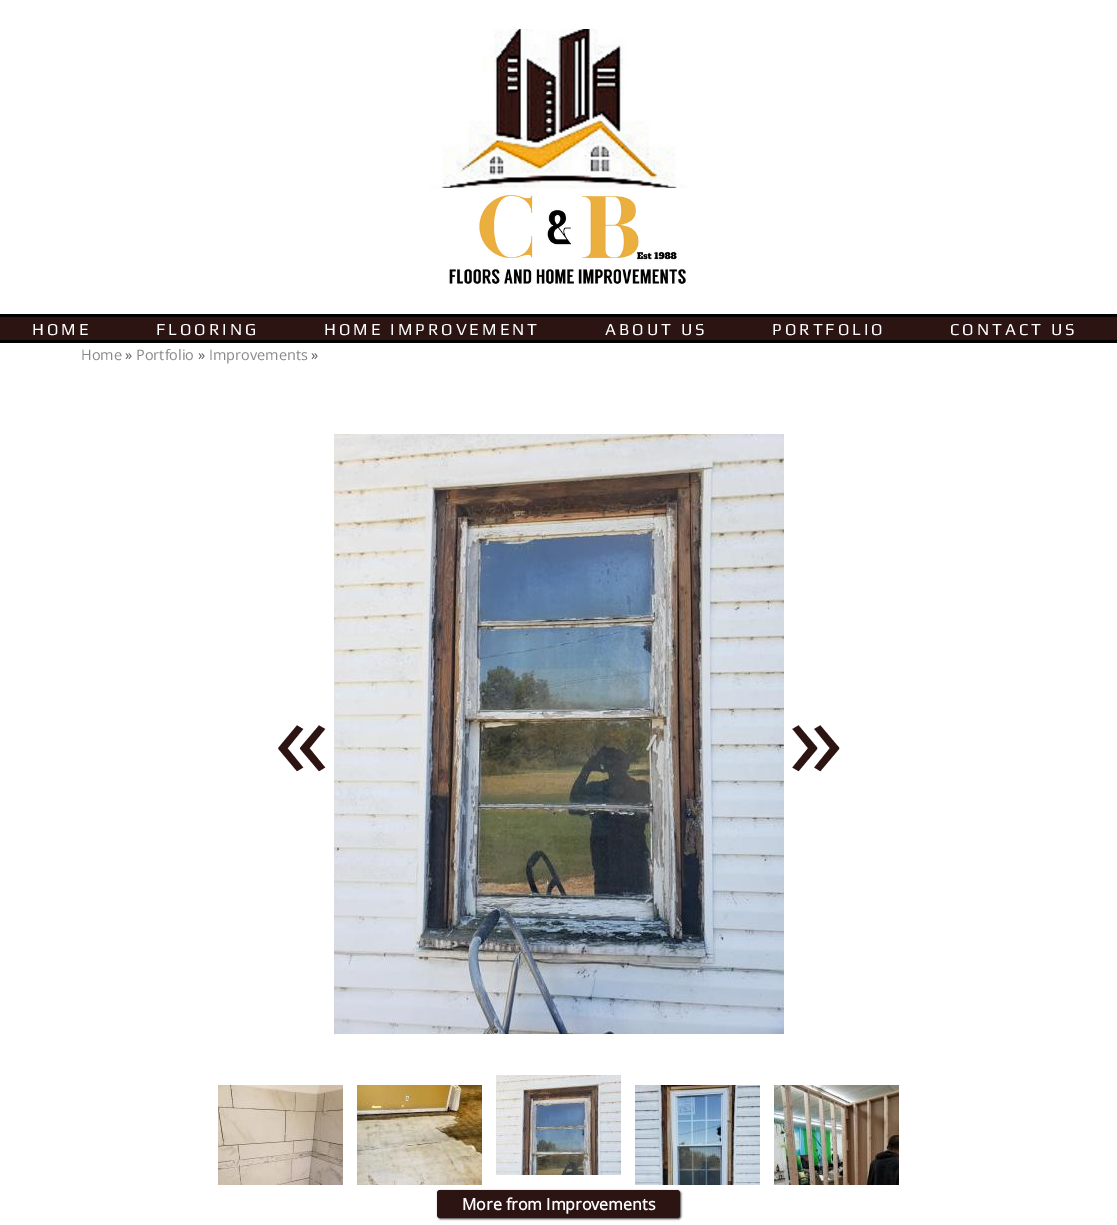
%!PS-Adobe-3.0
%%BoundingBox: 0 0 1117 1225
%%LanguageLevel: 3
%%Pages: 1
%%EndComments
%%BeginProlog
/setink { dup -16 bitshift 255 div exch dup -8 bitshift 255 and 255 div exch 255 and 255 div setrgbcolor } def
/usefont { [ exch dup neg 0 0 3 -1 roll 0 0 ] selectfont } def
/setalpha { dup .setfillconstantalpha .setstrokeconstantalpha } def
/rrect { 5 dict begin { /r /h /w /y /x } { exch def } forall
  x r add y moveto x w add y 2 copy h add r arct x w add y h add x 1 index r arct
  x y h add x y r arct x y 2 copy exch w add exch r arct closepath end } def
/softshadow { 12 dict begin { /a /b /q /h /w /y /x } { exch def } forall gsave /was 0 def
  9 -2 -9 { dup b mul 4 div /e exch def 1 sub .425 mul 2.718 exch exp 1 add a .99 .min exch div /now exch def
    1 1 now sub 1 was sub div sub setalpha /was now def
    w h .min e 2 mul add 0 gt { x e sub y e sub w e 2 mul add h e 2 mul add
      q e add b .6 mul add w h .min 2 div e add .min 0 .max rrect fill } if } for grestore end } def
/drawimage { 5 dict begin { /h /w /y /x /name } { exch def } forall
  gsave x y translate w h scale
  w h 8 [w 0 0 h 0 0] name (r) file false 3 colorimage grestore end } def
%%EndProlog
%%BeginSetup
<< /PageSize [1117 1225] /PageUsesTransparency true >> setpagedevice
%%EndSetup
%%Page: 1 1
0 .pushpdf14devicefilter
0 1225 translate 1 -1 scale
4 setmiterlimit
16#FFFFFF setink
0 0 1117 1225 rectfill
(img1.raw) 431 29 256 255 drawimage
[
    [0 317 1117 23 16#2C1413]
    [0 314 1117 3 16#000000]
    [0 340 1117 3 16#000000]
] { aload pop setink rectfill } forall
/Play-Regular 16.75 usefont
16#FFFFFF setink
32 335 moveto 3 0 (HOME) ashow
156 335 moveto 3 0 (FLOORING) ashow
324 335 moveto 3 0 (HOME IMPROVEMENT) ashow
605 335 moveto 3 0 (ABOUT US) ashow
772 335 moveto 3 0 (PORTFOLIO) ashow
950 335 moveto 3 0 (CONTACT US) ashow
/OpenSans-Regular 14.5 usefont
16#888888 setink
81 360 moveto (Home) show
16#555555 setink
125 360 moveto (») show
16#888888 setink
136 360 moveto (Portfolio) show
16#555555 setink
198 360 moveto (») show
16#888888 setink
209 360 moveto (Improvements) show
16#555555 setink
311 360 moveto (») show
/OpenSans-Regular 112 usefont
16#2C1413 setink
274 778 moveto («) show
(img2.raw) 334 434 450 600 drawimage
788 778 moveto (») show
(img3.raw) 218 1085 125 100 drawimage
(img4.raw) 357 1085 125 100 drawimage
(img5.raw) 496 1075 125 100 drawimage
(img6.raw) 635 1085 125 100 drawimage
(img7.raw) 774 1085 125 100 drawimage
16#333333 setink
438 1191 243 28 3 1 1 softshadow
16#2C1413 setink
437 1190 243 28 3 rrect fill
/OpenSans-Bold 16 usefont
16#FFFFFF setink
462 1210 moveto (More from Improvements) show
.poppdf14devicefilter showpage
%%EOF
